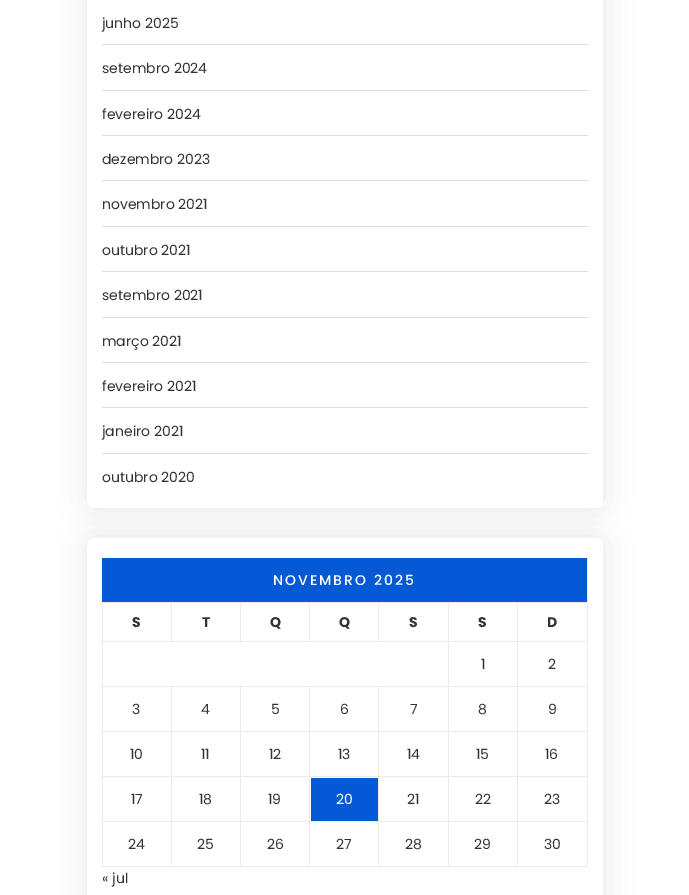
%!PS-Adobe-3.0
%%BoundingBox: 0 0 689 895
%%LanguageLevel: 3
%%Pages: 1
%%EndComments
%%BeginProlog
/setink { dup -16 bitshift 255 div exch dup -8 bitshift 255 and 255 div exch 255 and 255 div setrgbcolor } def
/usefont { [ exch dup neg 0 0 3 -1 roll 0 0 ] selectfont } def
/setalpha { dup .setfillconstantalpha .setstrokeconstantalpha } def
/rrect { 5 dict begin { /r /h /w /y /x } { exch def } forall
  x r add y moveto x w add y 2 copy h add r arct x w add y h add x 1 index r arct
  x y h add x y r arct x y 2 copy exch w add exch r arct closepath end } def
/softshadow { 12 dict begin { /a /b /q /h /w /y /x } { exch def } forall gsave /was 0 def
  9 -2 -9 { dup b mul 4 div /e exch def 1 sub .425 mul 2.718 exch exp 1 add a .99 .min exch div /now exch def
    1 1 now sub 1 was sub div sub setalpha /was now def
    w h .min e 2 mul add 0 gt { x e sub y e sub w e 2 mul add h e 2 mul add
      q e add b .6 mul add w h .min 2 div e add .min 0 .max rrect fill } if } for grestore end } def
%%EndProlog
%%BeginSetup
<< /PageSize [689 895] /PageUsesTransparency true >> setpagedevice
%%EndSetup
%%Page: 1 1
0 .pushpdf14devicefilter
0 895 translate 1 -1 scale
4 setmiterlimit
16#FFFFFF setink
0 0 689 895 rectfill
16#000000 setink
87 -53 516 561 8 15 0.09 softshadow
16#FFFFFF setink
87 -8 516 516 8 rrect fill
16#DDDDDD setink
102 44 486 1 rectfill
/Poppins-Regular 14 usefont
16#333333 setink
102 28 moveto (junho 2025) show
16#DDDDDD setink
102 90 486 1 rectfill
16#333333 setink
102 73 moveto (setembro 2024) show
16#DDDDDD setink
102 135 486 1 rectfill
16#333333 setink
102 119 moveto (fevereiro 2024) show
16#DDDDDD setink
102 180 486 1 rectfill
16#333333 setink
102 164 moveto (dezembro 2023) show
16#DDDDDD setink
102 226 486 1 rectfill
16#333333 setink
102 209 moveto (novembro 2021) show
16#DDDDDD setink
102 271 486 1 rectfill
16#333333 setink
102 255 moveto (outubro 2021) show
16#DDDDDD setink
102 317 486 1 rectfill
16#333333 setink
102 300 moveto (setembro 2021) show
16#DDDDDD setink
102 362 486 1 rectfill
16#333333 setink
102 346 moveto (março 2021) show
16#DDDDDD setink
102 407 486 1 rectfill
16#333333 setink
102 391 moveto (fevereiro 2021) show
16#DDDDDD setink
102 453 486 1 rectfill
16#333333 setink
102 436 moveto (janeiro 2021) show
102 482 moveto (outubro 2020) show
16#000000 setink
87 538 516 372 8 15 0.09 softshadow
16#FFFFFF setink
87 538 516 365 8 rrect fill
[
    [587 558 1 309 16#EFEAEA]
    [102 866 486 1 16#EFEAEA]
    [102 558 485 44 16#0659D4]
] { aload pop setink rectfill } forall
/Poppins-Medium 14 usefont
16#FFFFFF setink
273 585 moveto 2 0 (NOVEMBRO 2025) ashow
[
    [102 602 486 1 16#EFEAEA]
    [102 641 486 1 16#EFEAEA]
    [102 686 486 1 16#EFEAEA]
    [102 731 486 1 16#EFEAEA]
    [102 776 486 1 16#EFEAEA]
    [102 821 486 1 16#EFEAEA]
    [102 821 1 46 16#EFEAEA]
    [102 776 1 46 16#EFEAEA]
    [102 731 1 46 16#EFEAEA]
    [102 686 1 46 16#EFEAEA]
    [102 641 1 46 16#EFEAEA]
    [102 602 1 40 16#EFEAEA]
    [171 602 1 40 16#EFEAEA]
] { aload pop setink rectfill } forall
/Poppins-Bold 14 usefont
16#333333 setink
132 627 moveto (S) show
16#EFEAEA setink
240 602 1 40 rectfill
16#333333 setink
202 627 moveto (T) show
16#EFEAEA setink
309 602 1 40 rectfill
16#333333 setink
270 627 moveto (Q) show
16#EFEAEA setink
378 602 1 40 rectfill
16#333333 setink
[
    [(Q) 339 627]
    [(S) 409 627]
    [(S) 478 627]
    [(D) 547 627]
] { aload pop moveto show } forall
/Poppins-Regular 14 usefont
[
    [(1) 481 669]
    [(2) 548 669]
    [(3) 132 714]
    [(4) 201 714]
    [(5) 271 714]
    [(6) 340 714]
    [(7) 410 714]
    [(8) 478 714]
    [(9) 548 714]
    [(10) 130 759]
    [(11) 201 759]
    [(12) 269 759]
    [(13) 338 759]
    [(14) 407 759]
    [(15) 476 759]
    [(16) 545 759]
    [(17) 131 804]
    [(18) 199 804]
    [(19) 268 804]
] { aload pop moveto show } forall
16#0659D4 setink
311 778 67 43 rectfill
16#FFFFFF setink
336 804 moveto (20) show
16#333333 setink
[
    [(21) 407 804]
    [(22) 475 804]
    [(23) 544 804]
    [(24) 128 849]
] { aload pop moveto show } forall
16#EFEAEA setink
171 686 1 181 rectfill
16#333333 setink
197 849 moveto (25) show
16#EFEAEA setink
240 686 1 181 rectfill
16#333333 setink
267 849 moveto (26) show
16#EFEAEA setink
309 686 1 181 rectfill
16#333333 setink
336 849 moveto (27) show
16#EFEAEA setink
378 686 1 181 rectfill
16#333333 setink
405 849 moveto (28) show
16#EFEAEA setink
448 602 1 265 rectfill
16#333333 setink
474 849 moveto (29) show
16#EFEAEA setink
517 602 1 265 rectfill
16#333333 setink
544 849 moveto (30) show
102 883 moveto (« jul) show
.poppdf14devicefilter showpage
%%EOF
